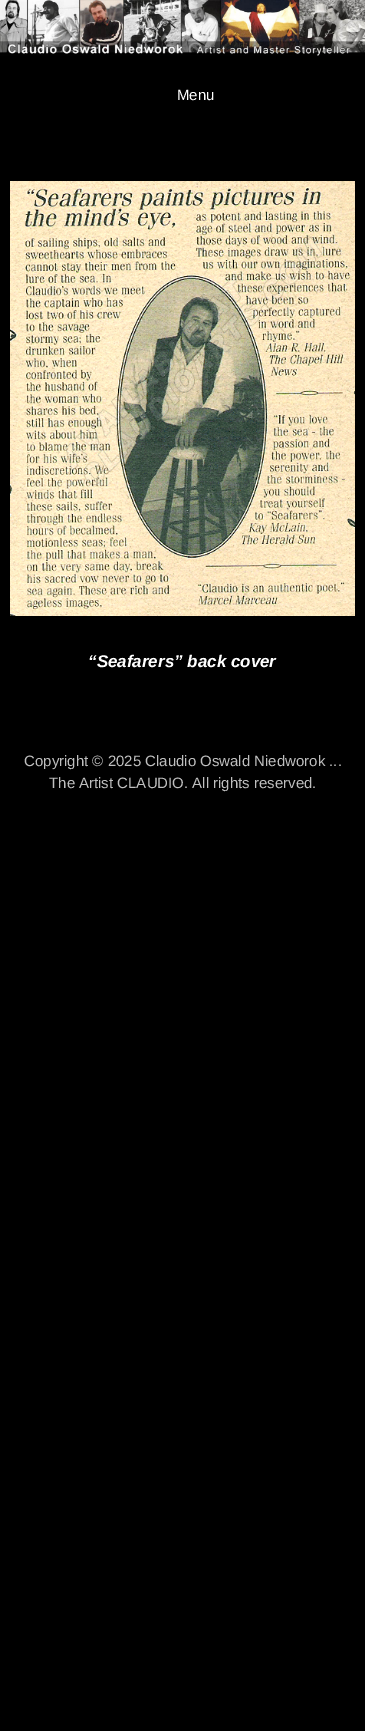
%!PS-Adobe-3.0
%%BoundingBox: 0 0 365 1731
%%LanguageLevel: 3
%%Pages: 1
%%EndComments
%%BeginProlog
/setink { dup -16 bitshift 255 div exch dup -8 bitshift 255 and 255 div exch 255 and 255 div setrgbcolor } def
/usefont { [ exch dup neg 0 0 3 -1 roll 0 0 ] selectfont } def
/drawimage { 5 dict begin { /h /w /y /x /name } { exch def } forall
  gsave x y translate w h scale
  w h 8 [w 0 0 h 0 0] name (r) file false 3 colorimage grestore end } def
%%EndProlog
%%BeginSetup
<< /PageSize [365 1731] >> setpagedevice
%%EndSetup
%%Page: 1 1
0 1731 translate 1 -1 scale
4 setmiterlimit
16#000000 setink
0 0 365 1731 rectfill
(img1.raw) 0 0 365 56 drawimage
/LiberationSans-Regular 15 usefont
16#FFFFFF setink
177 100 moveto (Menu) show
(img2.raw) 10 181 345 435 drawimage
/LiberationSans-BoldItalic 17 usefont
88 667 moveto (“Seafarers” back cover) show
/LiberationSans-Regular 15 usefont
16#BFBFBF setink
24 766 moveto (Copyright © 2025 Claudio Oswald Niedworok ...) show
49 788 moveto (The Artist CLAUDIO. All rights reserved.) show
showpage
%%EOF
